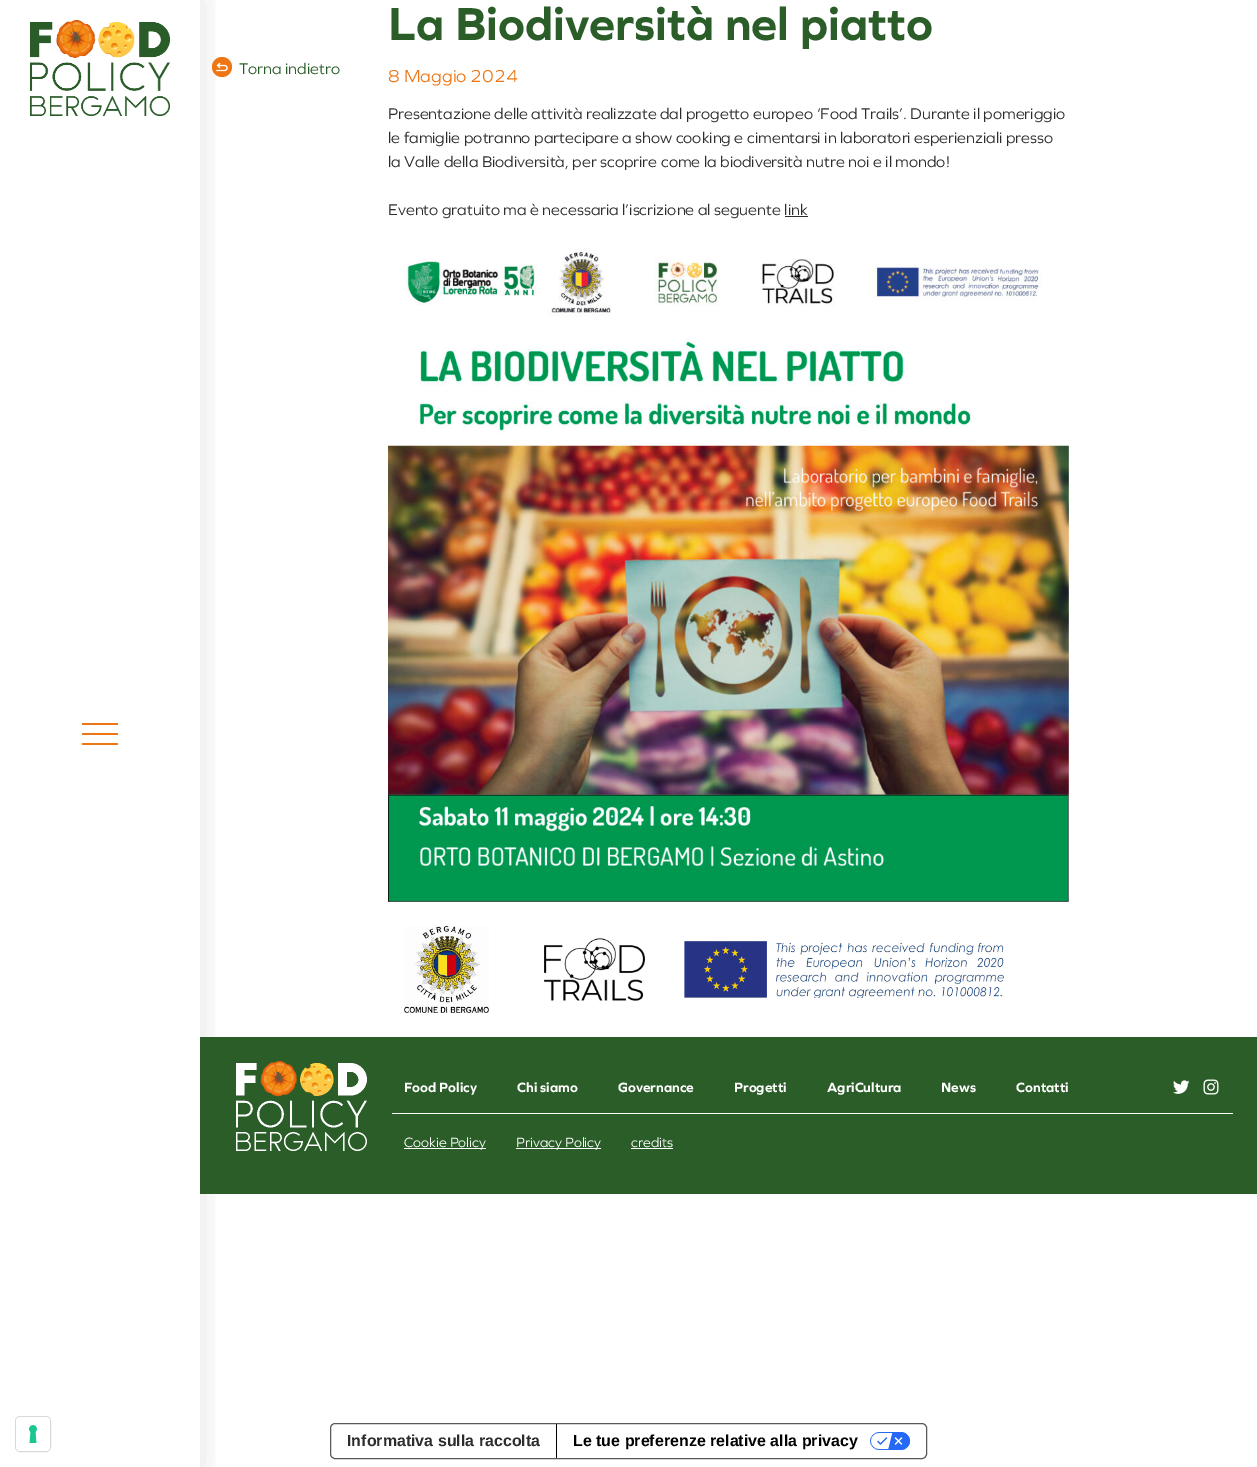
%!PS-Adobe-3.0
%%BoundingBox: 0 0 1257 1467
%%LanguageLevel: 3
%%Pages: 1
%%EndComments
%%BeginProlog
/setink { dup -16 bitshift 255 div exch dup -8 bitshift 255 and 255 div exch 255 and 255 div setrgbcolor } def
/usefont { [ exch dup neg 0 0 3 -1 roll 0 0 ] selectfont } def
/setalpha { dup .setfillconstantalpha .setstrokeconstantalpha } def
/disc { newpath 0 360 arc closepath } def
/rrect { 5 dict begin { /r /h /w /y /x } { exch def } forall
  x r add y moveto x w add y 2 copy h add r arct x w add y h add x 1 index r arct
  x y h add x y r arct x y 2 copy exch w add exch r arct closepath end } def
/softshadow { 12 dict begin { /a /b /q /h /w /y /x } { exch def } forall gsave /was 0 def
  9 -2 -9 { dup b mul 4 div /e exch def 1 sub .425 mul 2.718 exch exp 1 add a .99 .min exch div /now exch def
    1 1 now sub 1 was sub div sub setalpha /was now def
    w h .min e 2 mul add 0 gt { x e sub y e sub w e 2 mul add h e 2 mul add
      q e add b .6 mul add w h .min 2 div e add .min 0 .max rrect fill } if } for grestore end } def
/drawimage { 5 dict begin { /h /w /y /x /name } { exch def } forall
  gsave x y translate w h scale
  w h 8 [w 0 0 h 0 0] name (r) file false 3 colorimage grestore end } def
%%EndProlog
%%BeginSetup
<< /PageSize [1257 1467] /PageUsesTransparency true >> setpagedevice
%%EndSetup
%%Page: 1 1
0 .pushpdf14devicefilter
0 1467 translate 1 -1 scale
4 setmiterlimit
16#FFFFFF setink
0 0 1257 1467 rectfill
gsave
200 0 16 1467 rectclip
16#000000 setink
3 0 200 1467 0 15 0.1 softshadow
grestore
(img1.raw) 30 20 140 96 drawimage
[
    [82 723 36 2 16#EF7614]
    [82 733 36 2 16#EF7614]
    [82 743 36 2 16#EF7614]
] { aload pop setink rectfill } forall
222 67 10 disc fill
(img2.raw) 216 62 12 10 drawimage
/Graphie-Regular 16 usefont
16#2B5D29 setink
239 74 moveto (Torna indietro) show
/Graphie-Bold 48 usefont
388 40 moveto (La Biodiversità nel piatto) show
/Graphie-Regular 18 usefont
16#EF7614 setink
388 82 moveto (8 Maggio 2024) show
/Graphie-Regular 16 usefont
16#2C2C2C setink
[
    [(Presentazione delle attività realizzate dal progetto europeo ‘Food Trails’. Durante il pomeriggio) 388 119]
    [(le famiglie potranno partecipare a show cooking e cimentarsi in laboratori esperienziali presso) 388 143]
    [(la Valle della Biodiversità, per scoprire come la biodiversità nutre noi e il mondo!) 388 167]
    [(Evento gratuito ma è necessaria l’iscrizione al seguente link) 388 215]
] { aload pop moveto show } forall
785 216 23 1 rectfill
(img3.raw) 388 248 681 654 drawimage
(img4.raw) 404 926 85 87 drawimage
(img5.raw) 544 938 101 63 drawimage
(img6.raw) 684 941 320 57 drawimage
16#2B5D29 setink
200 1037 1057 157 rectfill
(img7.raw) 236 1061 131 90 drawimage
16#FFFFFF setink
392 1113 841 1 rectfill
/Graphie-Bold 14 usefont
[
    [(Food Policy) 404 1092]
    [(Chi siamo) 517 1092]
    [(Governance) 618 1092]
    [(Progetti) 734 1092]
    [(AgriCultura) 827 1092]
    [(News) 941 1092]
    [(Contatti) 1016 1092]
] { aload pop moveto show } forall
(img8.raw) 1173 1080 17 14 drawimage
(img9.raw) 1203 1079 16 16 drawimage
404 1148 82 1 rectfill
/Graphie-Regular 14 usefont
404 1147 moveto (Cookie Policy) show
516 1148 85 1 rectfill
516 1147 moveto (Privacy Policy) show
631 1147 moveto (credits) show
631 1148 42 1 rectfill
16#D9D9D9 setink
15.5 1416.5 35 35 4.5 rrect stroke
16#FFFFFF setink
16 1417 34 34 4 rrect fill
(img10.raw) 29 1425 8 18 drawimage
16#595959 setink
330.5 1423.5 596 35 4.5 rrect stroke
/LiberationSans-Bold 16 usefont
16#2C2C2C setink
347 1446 moveto (Informativa sulla raccolta) show
16#000000 setink
556 1424 1 34 rectfill
573 1446 moveto (Le tue preferenze relative alla privacy) show
(img11.raw) 870 1432 40 18 drawimage
.poppdf14devicefilter showpage
%%EOF
